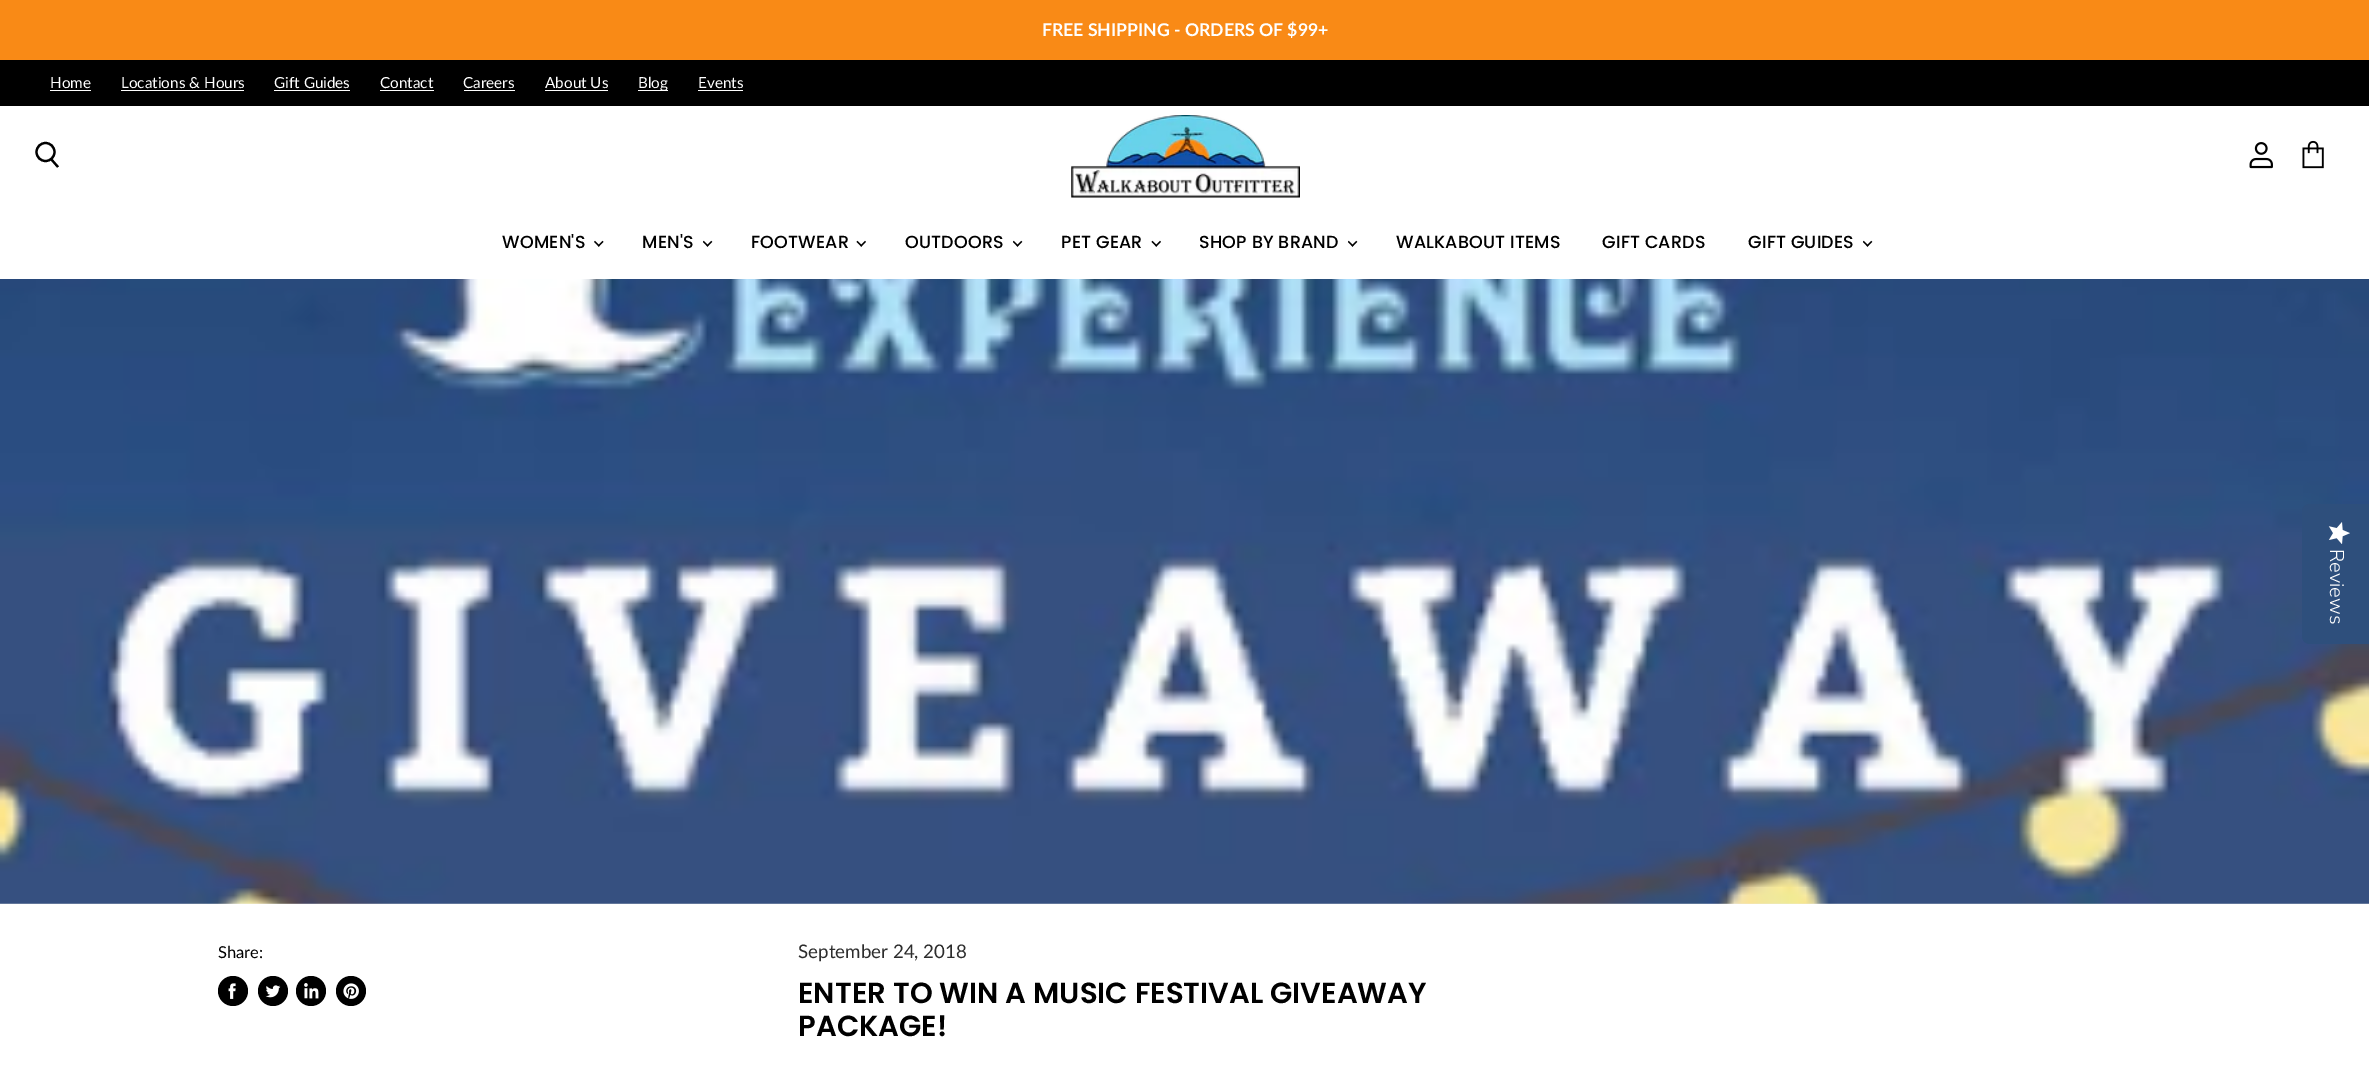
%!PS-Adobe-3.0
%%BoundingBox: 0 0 2369 1075
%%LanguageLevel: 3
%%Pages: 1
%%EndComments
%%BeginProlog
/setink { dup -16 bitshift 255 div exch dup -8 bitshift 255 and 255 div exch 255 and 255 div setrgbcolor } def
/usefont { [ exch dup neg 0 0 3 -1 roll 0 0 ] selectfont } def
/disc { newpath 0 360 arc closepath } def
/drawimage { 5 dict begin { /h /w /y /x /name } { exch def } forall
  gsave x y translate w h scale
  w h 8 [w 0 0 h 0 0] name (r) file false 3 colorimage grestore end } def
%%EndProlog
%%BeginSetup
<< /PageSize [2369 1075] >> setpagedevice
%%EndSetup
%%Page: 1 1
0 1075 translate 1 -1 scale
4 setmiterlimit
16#FFFFFF setink
0 0 2369 1075 rectfill
16#F98A16 setink
0 0 2369 60 rectfill
/Lato-Bold 17.6 usefont
16#FFFFFF setink
1042 36 moveto (FREE SHIPPING - ORDERS OF $99+) show
16#000000 setink
0 60 2369 46 rectfill
/Lato-Regular 15.25 usefont
16#FFFFFF setink
50 88 moveto (Home) show
50 90 41 1 rectfill
121 88 moveto (Locations & Hours) show
121 90 123 1 rectfill
274 88 moveto (Gift Guides) show
274 90 76 1 rectfill
380 88 moveto (Contact) show
380 90 54 1 rectfill
463 88 moveto (Careers) show
464 90 51 1 rectfill
545 88 moveto (About Us) show
545 90 63 1 rectfill
638 90 30 1 rectfill
638 88 moveto (Blog) show
698 88 moveto (Events) show
698 90 45 1 rectfill
(img1.raw) 1071 115 229 83 drawimage
16#000000 setink
2.2 setlinewidth
58 167 moveto 51 159 lineto stroke
45.5 152 9 disc stroke
(img2.raw) 2249 142 24 27 drawimage
(img3.raw) 2302 140 22 29 drawimage
/Poppins-Medium 17.5 usefont
502 248 moveto 0.2 0 (WOMEN'S) ashow
(img4.raw) 594 240 10 7 drawimage
642 248 moveto 0.2 0 (MEN'S) ashow
(img5.raw) 703 240 10 7 drawimage
751 248 moveto 0.2 0 (FOOTWEAR) ashow
(img6.raw) 856 240 10 7 drawimage
905 248 moveto 0.2 0 (OUTDOORS) ashow
(img5.raw) 1013 240 10 7 drawimage
1061 248 moveto 0.2 0 (PET GEAR) ashow
(img6.raw) 1151 240 10 7 drawimage
1199 248 moveto 0.2 0 (SHOP BY BRAND) ashow
(img5.raw) 1348 240 10 7 drawimage
1396 248 moveto 0.2 0 (WALKABOUT ITEMS) ashow
1602 248 moveto 0.2 0 (GIFT CARDS) ashow
1748 248 moveto 0.2 0 (GIFT GUIDES) ashow
(img5.raw) 1863 240 10 7 drawimage
(img8.raw) 0 279 2369 625 drawimage
16#2E4F7C setink
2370 504 moveto 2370 644 lineto 2310 644 lineto 2306 644 2302 641 2302 636 curveto 2302 511 lineto 2302 507 2306 504 2310 504 curveto closepath fill
(img7.raw) 2328 522 22 22 drawimage
/NunitoSans-Light 20 usefont
16#FFFFFF setink
gsave 2330 549 translate 90 rotate 0 0 moveto (Reviews) show grestore
/Lato-Regular 16.5 usefont
16#000000 setink
218 958 moveto (Share:) show
233 991 15 disc fill
(img9.raw) 228 983 8 16 drawimage
273 991 15 disc fill
(img10.raw) 265 985 16 13 drawimage
311 991 15 disc fill
(img11.raw) 304 983 15 16 drawimage
351 991 15 disc fill
(img12.raw) 343 983 16 16 drawimage
/Lato-Regular 18.75 usefont
16#2D2D2D setink
798 958 moveto (September 24, 2018) show
/Poppins-SemiBold 29.1 usefont
16#000000 setink
798 1003 moveto (ENTER TO WIN A MUSIC FESTIVAL GIVEAWAY) show
798 1036 moveto (PACKAGE!) show
showpage
%%EOF
